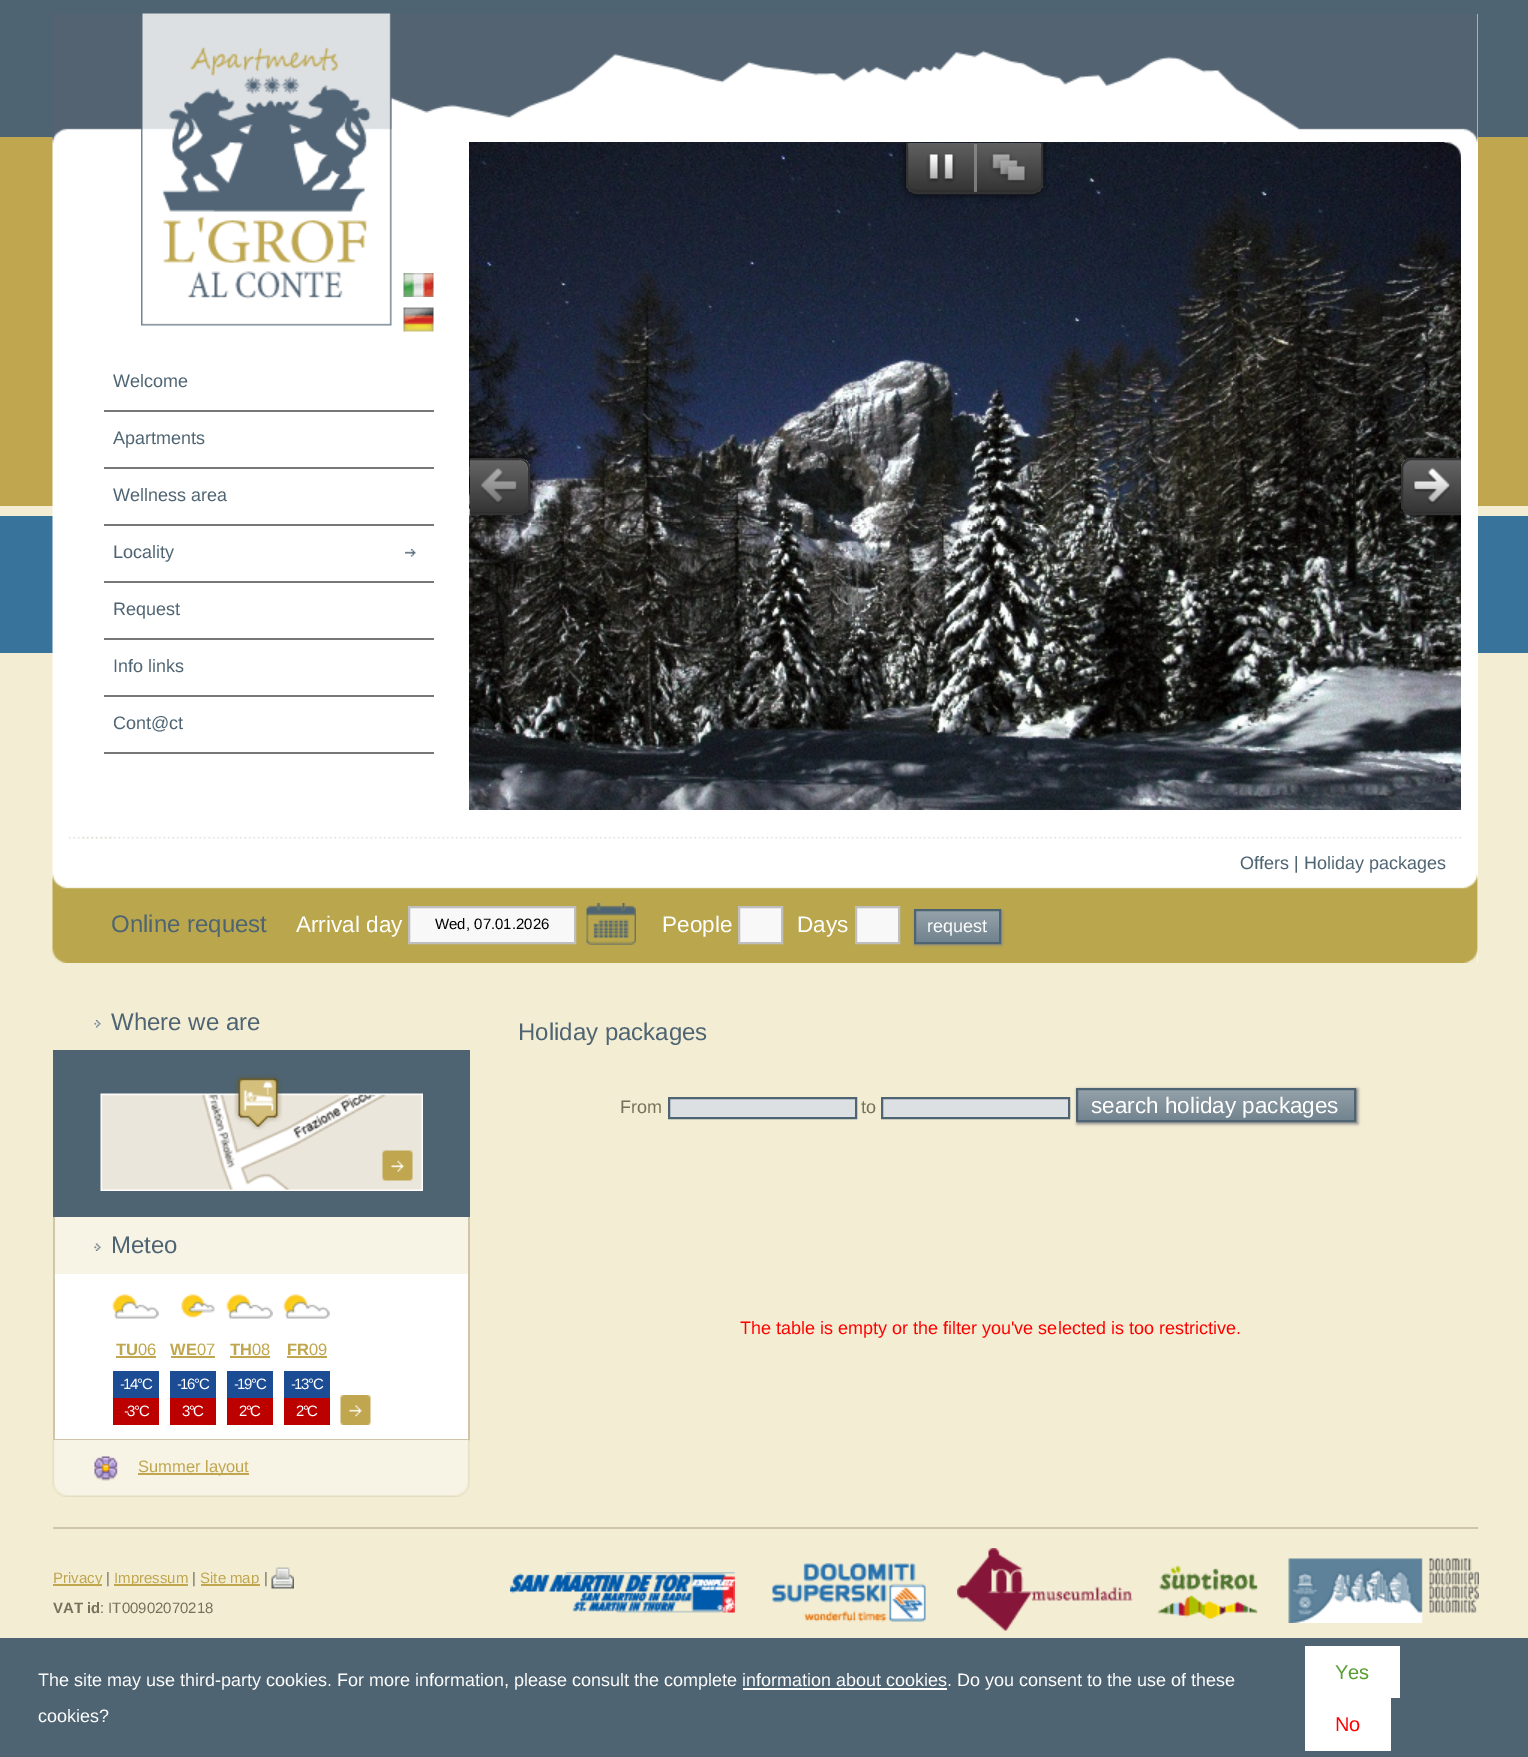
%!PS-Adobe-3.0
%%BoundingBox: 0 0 1528 1757
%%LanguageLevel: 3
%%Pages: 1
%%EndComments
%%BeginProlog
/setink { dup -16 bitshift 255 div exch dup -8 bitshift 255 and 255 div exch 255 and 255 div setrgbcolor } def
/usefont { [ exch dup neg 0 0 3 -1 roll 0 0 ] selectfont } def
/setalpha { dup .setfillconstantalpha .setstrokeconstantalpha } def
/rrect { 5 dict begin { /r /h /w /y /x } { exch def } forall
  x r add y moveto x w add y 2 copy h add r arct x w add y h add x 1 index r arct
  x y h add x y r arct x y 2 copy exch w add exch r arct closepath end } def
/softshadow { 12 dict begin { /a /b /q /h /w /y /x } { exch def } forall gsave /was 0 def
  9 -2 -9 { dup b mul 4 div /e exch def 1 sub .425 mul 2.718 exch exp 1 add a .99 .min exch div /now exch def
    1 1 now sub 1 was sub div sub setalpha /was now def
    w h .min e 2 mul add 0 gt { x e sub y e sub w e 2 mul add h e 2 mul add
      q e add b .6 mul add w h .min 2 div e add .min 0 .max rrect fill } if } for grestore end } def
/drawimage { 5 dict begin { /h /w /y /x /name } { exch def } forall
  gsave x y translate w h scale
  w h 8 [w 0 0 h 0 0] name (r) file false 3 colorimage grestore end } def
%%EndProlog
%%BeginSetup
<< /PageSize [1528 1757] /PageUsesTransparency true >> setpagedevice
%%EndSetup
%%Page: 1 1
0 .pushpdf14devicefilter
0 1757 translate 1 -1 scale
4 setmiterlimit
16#F3EDD3 setink
0 0 1528 1757 rectfill
[
    [0 0 1528 137 16#4E6472]
    [0 137 1528 369 16#BFA64F]
    [0 516 1528 137 16#37739A]
    [1477 14 1 949 16#FFFFFF]
] { aload pop setink rectfill } forall
(img1.raw) 52 14 1426 949 drawimage
(img2.raw) 141 13 251 313 drawimage
(img5.raw) 469 142 992 668 drawimage
gsave
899 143 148 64 rectclip
16#000000 setink
906 137 137 58 11 4 0.75 softshadow
grestore
gsave
906 135 137 59 11 rrect clip newpath
gsave 906 143 moveto 1043 143 lineto 1043 192 lineto 906 192 lineto closepath clip newpath
<< /ShadingType 2 /ColorSpace /DeviceRGB /Coords [908 137 908 192] /Extend [true true] /Function << /FunctionType 2 /Domain [0 1] /C0 [0.4 0.4 0.4] /C1 [0.2 0.2 0.2] /N 1 >> >> shfill grestore
grestore
0.1 setalpha
16#000000 setink
908 182 moveto 908 197 927 192 936 192 curveto 1013 192 lineto 1022 192 1041 197 1041 182 curveto 1041 186 1037 190 1032 190 curveto 916 190 lineto 912 190 908 186 908 182 curveto closepath fill
gsave
899 143 148 64 rectclip
1 setalpha
16#9F9F9F setink
916 138 moveto 1032 138 lineto 1037 138 1041 142 1041 147 curveto 1041 132 1022 137 1013 137 curveto 936 137 lineto 927 137 908 132 908 147 curveto 908 142 912 138 916 138 curveto closepath fill
16#333333 setink
2 setlinewidth
907 136 135 57 10 rrect stroke
grestore
0.7 setalpha
16#969696 setink
974 144 3 48 rectfill
1 setalpha
(img3.raw) 926 153 30 30 drawimage
(img4.raw) 989 152 38 31 drawimage
gsave
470 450 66 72 rectclip
16#000000 setink
450 459 80 57 11 4 0.75 softshadow
grestore
gsave
450 458 80 57 11 rrect clip newpath
gsave 470 459 moveto 530 459 lineto 530 513 lineto 470 513 lineto closepath clip newpath
<< /ShadingType 2 /ColorSpace /DeviceRGB /Coords [452 459 452 513] /Extend [true true] /Function << /FunctionType 2 /Domain [0 1] /C0 [0.4 0.4 0.4] /C1 [0.2 0.2 0.2] /N 1 >> >> shfill grestore
grestore
gsave
470 450 66 72 rectclip
0.1 setalpha
16#000000 setink
452 502 moveto 452 514 461 513 471 513 curveto 509 513 lineto 519 513 528 514 528 502 curveto 528 507 524 512 519 512 curveto 460 512 lineto 456 512 452 507 452 502 curveto closepath fill
0.4 setalpha
16#FFFFFF setink
460 460 moveto 519 460 lineto 524 460 528 465 528 470 curveto 528 458 519 459 509 459 curveto 471 459 lineto 461 459 452 458 452 470 curveto 452 465 456 460 460 460 curveto closepath fill
1 setalpha
16#333333 setink
2 setlinewidth
451 459 78 55 10 rrect stroke
grestore
(img6.raw) 481 468 36 36 drawimage
gsave
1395 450 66 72 rectclip
16#000000 setink
1401 459 80 57 11 4 0.75 softshadow
grestore
gsave
1401 458 80 57 11 rrect clip newpath
gsave 1401 459 moveto 1461 459 lineto 1461 513 lineto 1401 513 lineto closepath clip newpath
<< /ShadingType 2 /ColorSpace /DeviceRGB /Coords [1403 459 1403 513] /Extend [true true] /Function << /FunctionType 2 /Domain [0 1] /C0 [0.4 0.4 0.4] /C1 [0.2 0.2 0.2] /N 1 >> >> shfill grestore
grestore
gsave
1395 450 66 72 rectclip
16#2E2E2E setink
1403 507 moveto 1405 510 1408 513 1412 513 curveto 1470 513 lineto 1475 513 1479 509 1479 504 curveto 1479 502 lineto 1479 507 1475 512 1470 512 curveto 1412 512 lineto 1409 512 1405 510 1403 507 curveto closepath fill
16#333333 setink
2 setlinewidth
1402 459 78 55 10 rrect stroke
grestore
(img7.raw) 1413 467 38 38 drawimage
(img8.raw) 1444 142 17 20 drawimage
(img9.raw) 403 273 31 24 drawimage
(img10.raw) 403 307 31 25 drawimage
16#787878 setink
104 410 330 2 rectfill
/LiberationSans-Regular 18 usefont
16#4E6472 setink
113 387 moveto (Welcome) show
16#787878 setink
104 467 330 2 rectfill
16#4E6472 setink
113 444 moveto (Apartments) show
16#787878 setink
104 524 330 2 rectfill
16#4E6472 setink
113 501 moveto (Wellness area) show
16#787878 setink
104 581 330 2 rectfill
(img11.raw) 405 549 11 8 drawimage
16#4E6472 setink
113 558 moveto (Locality) show
16#787878 setink
104 638 330 2 rectfill
16#4E6472 setink
113 615 moveto (Request) show
16#787878 setink
104 695 330 2 rectfill
16#4E6472 setink
113 672 moveto (Info links) show
16#787878 setink
104 752 330 2 rectfill
16#4E6472 setink
113 729 moveto (Cont@ct) show
1240 869 moveto (Offers | Holiday packages) show
/LiberationSans-Regular 24 usefont
111 932 moveto (Online request) show
/LiberationSans-Regular 22.5 usefont
16#FFFFFF setink
296 932 moveto (Arrival day) show
16#F8F8F8 setink
409 907 moveto 575 907 lineto 575 943 lineto 409 943 lineto closepath gsave fill grestore
16#BFBFBF setink
2 setlinewidth
stroke
/LiberationSans-Regular 15 usefont
16#000000 setink
435 929 moveto (Wed, 07.01.2026) show
(img12.raw) 586 903 50 42 drawimage
/LiberationSans-Regular 22.5 usefont
16#FFFFFF setink
662 932 moveto (People) show
16#F8F8F8 setink
739 907 moveto 782 907 lineto 782 943 lineto 739 943 lineto closepath gsave fill grestore
16#BFBFBF setink
stroke
16#FFFFFF setink
797 932 moveto (Days) show
16#F8F8F8 setink
856 907 moveto 899 907 lineto 899 943 lineto 856 943 lineto closepath gsave fill grestore
16#BFBFBF setink
stroke
16#888888 setink
915 911 87 34 0 1.5 1 softshadow
gsave 916 911 moveto 999 911 lineto 999 942 lineto 916 942 lineto closepath clip newpath
<< /ShadingType 2 /ColorSpace /DeviceRGB /Coords [915 911 915 942] /Extend [true true] /Function << /FunctionType 2 /Domain [0 1] /C0 [0.584 0.635 0.667] /C1 [0.443 0.514 0.557] /N 1 >> >> shfill grestore
16#4E6472 setink
915 910 85 33 rectstroke
/LiberationSans-Regular 18 usefont
16#FFFFFF setink
927 932 moveto (request) show
(img13.raw) 94 1020 7 8 drawimage
/LiberationSans-Regular 24 usefont
16#4E6472 setink
111 1030 moveto (Where we are) show
53 1050 417 167 rectfill
(img14.raw) 100 1074 323 117 drawimage
[
    [55 1217 413 57 16#F8F4E5]
    [468 1217 2 223 16#D0C5A9]
    [53 1217 2 57 16#D0C5A9]
] { aload pop setink rectfill } forall
(img15.raw) 94 1243 7 8 drawimage
16#4E6472 setink
111 1253 moveto (Meteo) show
[
    [55 1274 413 165 16#FFFFFF]
    [53 1439 417 2 16#D0C5A9]
    [53 1274 2 166 16#D0C5A9]
] { aload pop setink rectfill } forall
(img16.raw) 112 1294 47 25 drawimage
(img17.raw) 181 1294 34 24 drawimage
(img16.raw) 226 1294 47 25 drawimage
(img18.raw) 283 1294 47 25 drawimage
/LiberationSans-Bold 16.5 usefont
16#BFA64F setink
116 1355 moveto (TU) show
116 1356 40 2 rectfill
/LiberationSans-Regular 16.5 usefont
138 1355 moveto (06) show
/LiberationSans-Bold 16.5 usefont
170 1355 moveto (WE) show
/LiberationSans-Regular 16.5 usefont
197 1355 moveto (07) show
171 1356 44 2 rectfill
/LiberationSans-Bold 16.5 usefont
230 1355 moveto (TH) show
/LiberationSans-Regular 16.5 usefont
252 1355 moveto (08) show
230 1356 40 2 rectfill
/LiberationSans-Bold 16.5 usefont
287 1355 moveto (FR) show
/LiberationSans-Regular 16.5 usefont
309 1355 moveto (09) show
287 1356 40 2 rectfill
16#1C4D94 setink
113 1371 46 27 rectfill
/LiberationSans-Regular 15 usefont
16#FFFFFF setink
120 1389 moveto -1.5 0 (-14°C) ashow
16#BC0000 setink
113 1398 46 27 rectfill
16#FFFFFF setink
124 1416 moveto -1.5 0 (-3°C) ashow
16#1C4D94 setink
170 1371 46 27 rectfill
16#FFFFFF setink
177 1389 moveto -1.5 0 (-16°C) ashow
16#BC0000 setink
170 1398 46 27 rectfill
16#FFFFFF setink
182 1416 moveto -1.5 0 (3°C) ashow
16#1C4D94 setink
227 1371 46 27 rectfill
16#FFFFFF setink
234 1389 moveto -1.5 0 (-19°C) ashow
16#BC0000 setink
227 1398 46 27 rectfill
16#FFFFFF setink
239 1416 moveto -1.5 0 (2°C) ashow
16#1C4D94 setink
284 1371 46 27 rectfill
16#FFFFFF setink
291 1389 moveto -1.5 0 (-13°C) ashow
16#BC0000 setink
284 1398 46 27 rectfill
16#FFFFFF setink
296 1416 moveto -1.5 0 (2°C) ashow
(img19.raw) 340 1395 31 30 drawimage
(img20.raw) 52 1440 418 57 drawimage
(img21.raw) 94 1456 24 25 drawimage
16#BFA64F setink
138 1473 111 2 rectfill
/LiberationSans-Regular 16.5 usefont
138 1472 moveto (Summer layout) show
/LiberationSans-Regular 24 usefont
16#4E6472 setink
518 1040 moveto (Holiday packages) show
/LiberationSans-Regular 18 usefont
16#76715C setink
620 1113 moveto (From) show
16#DCE0E3 setink
669 1098 moveto 856 1098 lineto 856 1118 lineto 669 1118 lineto closepath gsave fill grestore
16#4E6472 setink
stroke
16#76715C setink
861 1113 moveto (to) show
16#DCE0E3 setink
882 1098 moveto 1069 1098 lineto 1069 1118 lineto 882 1118 lineto closepath gsave fill grestore
16#4E6472 setink
stroke
16#888888 setink
1077 1089 281 35 0 1.5 1 softshadow
gsave 1078 1090 moveto 1354 1090 lineto 1354 1120 lineto 1078 1120 lineto closepath clip newpath
<< /ShadingType 2 /ColorSpace /DeviceRGB /Coords [1077 1089 1077 1121] /Extend [true true] /Function << /FunctionType 2 /Domain [0 1] /C0 [0.584 0.635 0.667] /C1 [0.443 0.514 0.557] /N 1 >> >> shfill grestore
16#4E6472 setink
1077 1089 278 32 rectstroke
/LiberationSans-Regular 22.5 usefont
16#FFFFFF setink
1091 1113 moveto (search holiday packages) show
/LiberationSans-Regular 18 usefont
16#FF0000 setink
740 1334 moveto (The table is empty or the filter you've selected is too restrictive.) show
16#D0C5A9 setink
53 1527 1425 2 rectfill
16#BFA64F setink
53 1584 49 2 rectfill
/LiberationSans-Regular 15 usefont
53 1583 moveto (Privacy) show
16#76715C setink
106 1583 moveto (|) show
16#BFA64F setink
114 1584 74 2 rectfill
114 1583 moveto (Impressum) show
16#76715C setink
192 1583 moveto (|) show
16#BFA64F setink
201 1584 59 2 rectfill
200 1583 moveto (Site map) show
16#76715C setink
264 1583 moveto (|) show
(img22.raw) 271 1567 23 22 drawimage
/LiberationSans-Bold 15 usefont
53 1613 moveto (VAT id) show
/LiberationSans-Regular 15 usefont
100 1613 moveto (: IT00902070218) show
(img23.raw) 510 1572 225 41 drawimage
(img24.raw) 772 1563 154 59 drawimage
(img25.raw) 957 1548 176 83 drawimage
(img26.raw) 1157 1565 101 54 drawimage
(img27.raw) 1288 1558 191 65 drawimage
16#4E6472 setink
0 1638 1528 119 rectfill
/LiberationSans-Regular 18 usefont
16#FFFFFF setink
38 1686 moveto (The site may use third-party cookies. For more information, please consult the complete information about cookies. Do you consent to the use of these) show
743 1688 204 2 rectfill
38 1722 moveto (cookies?) show
1305 1646 95 52 rectfill
/LiberationSans-Regular 20 usefont
16#589D32 setink
1335 1679 moveto (Yes) show
16#FFFFFF setink
1305 1698 86 53 rectfill
16#FF0000 setink
1335 1731 moveto (No) show
.poppdf14devicefilter showpage
%%EOF
